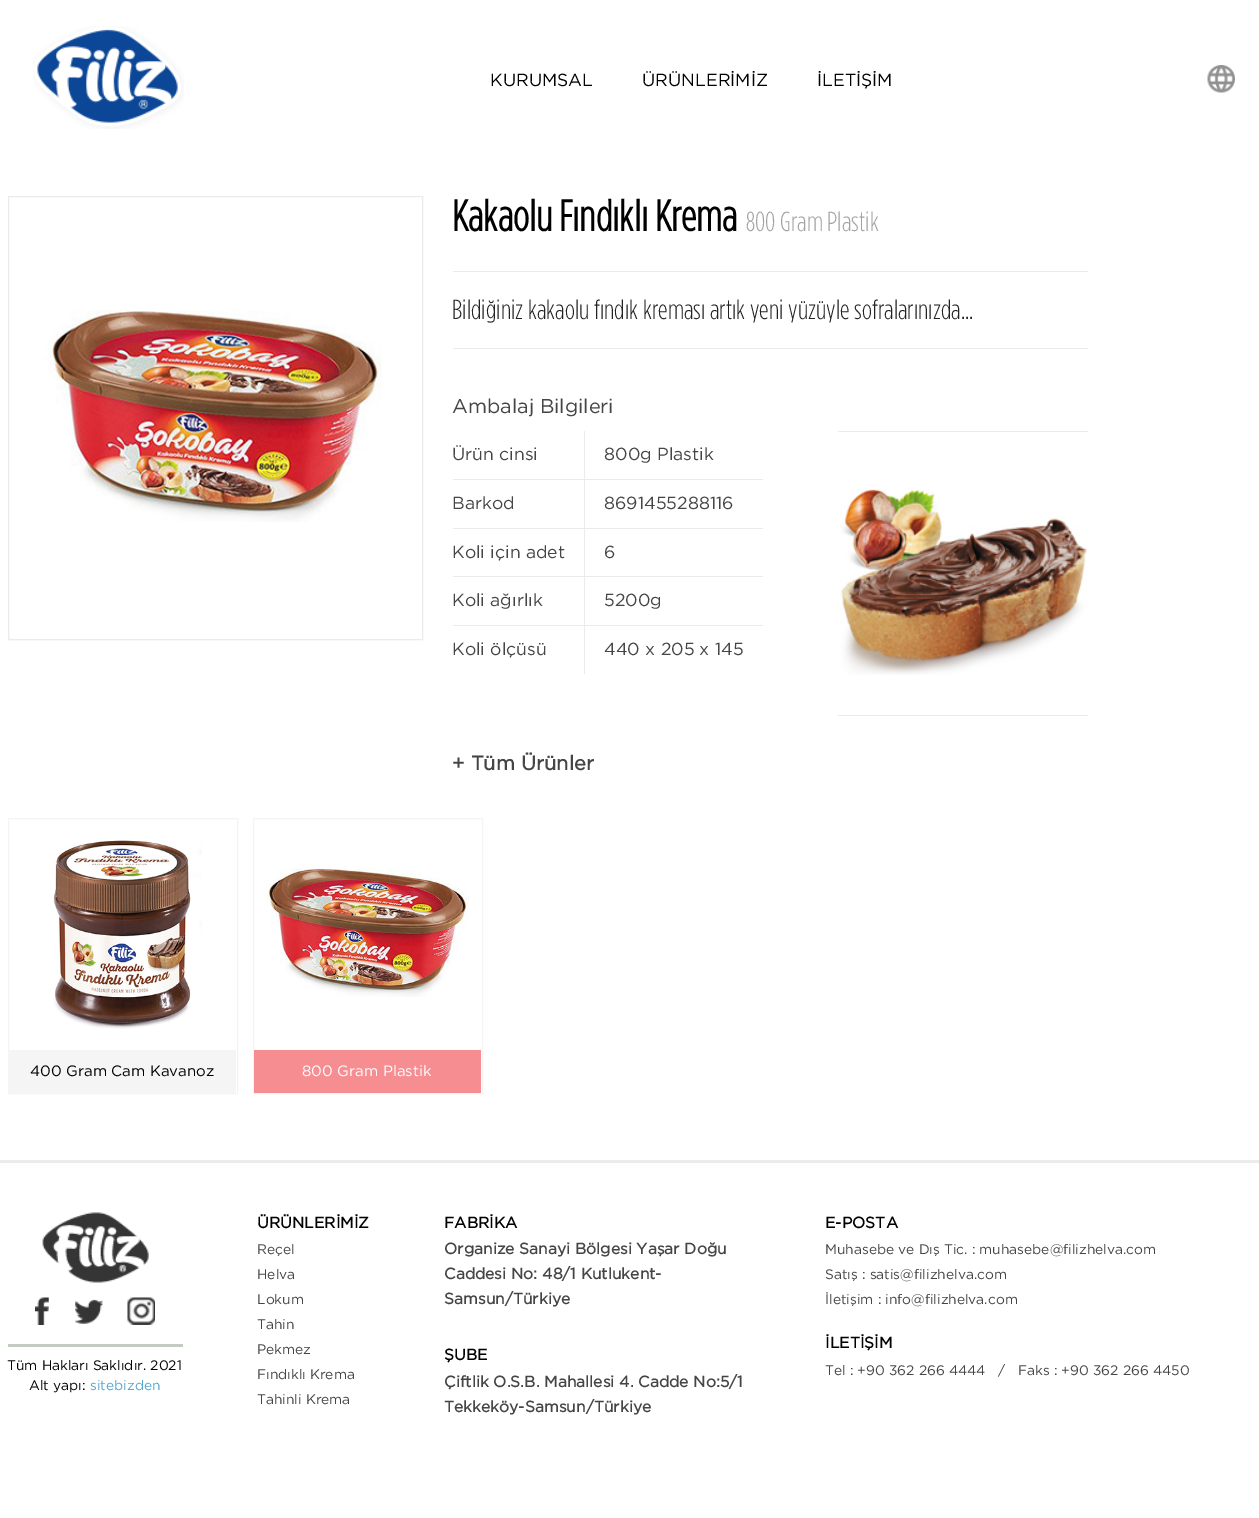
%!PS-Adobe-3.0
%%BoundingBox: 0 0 1259 1518
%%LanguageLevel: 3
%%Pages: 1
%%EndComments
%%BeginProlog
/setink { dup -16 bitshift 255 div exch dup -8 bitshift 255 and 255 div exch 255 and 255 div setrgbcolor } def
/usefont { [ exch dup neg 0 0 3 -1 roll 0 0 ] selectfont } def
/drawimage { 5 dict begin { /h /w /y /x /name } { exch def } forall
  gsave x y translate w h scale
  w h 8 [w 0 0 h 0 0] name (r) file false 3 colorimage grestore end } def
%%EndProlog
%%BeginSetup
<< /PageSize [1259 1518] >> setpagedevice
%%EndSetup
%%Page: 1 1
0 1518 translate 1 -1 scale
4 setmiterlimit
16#FFFFFF setink
0 0 1259 1518 rectfill
(img1.raw) 33 26 151 103 drawimage
/Gotham-Regular 17.5 usefont
16#000000 setink
[
    [(KURUMSAL) 490 86]
    [(ÜRÜNLERİMİZ) 642 86]
    [(İLETİŞİM) 817 86]
] { aload pop moveto show } forall
(img2.raw) 1207 65 28 28 drawimage
16#EBEBEB setink
8.5 196.5 414 443 rectstroke
(img3.raw) 41 310 341 212 drawimage
/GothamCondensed-Bold 43.75 usefont
16#000000 setink
452 231 moveto (Kakaolu Fındıklı Krema) show
/GothamCondensed-Light 27.5 usefont
16#A2A2A2 setink
746 231 moveto (800 Gram Plastik) show
16#EBEBEB setink
453 271 635 1 rectfill
453 348 635 1 rectfill
16#222222 setink
452 319 moveto (Bildiğiniz kakaolu fındık kreması artık yeni yüzüyle sofralarınızda...) show
/Gotham-Regular 20 usefont
16#454545 setink
452 413 moveto (Ambalaj Bilgileri) show
16#EBEBEB setink
584 431 1 243 rectfill
453 479 310 1 rectfill
/Gotham-Regular 17.5 usefont
16#454545 setink
452 460 moveto (Ürün cinsi) show
16#EBEBEB setink
453 528 310 1 rectfill
16#454545 setink
452 509 moveto (Barkod) show
16#EBEBEB setink
453 576 310 1 rectfill
16#454545 setink
452 558 moveto (Koli için adet) show
16#EBEBEB setink
453 625 310 1 rectfill
16#454545 setink
[
    [(Koli ağırlık) 452 606]
    [(Koli ölçüsü) 452 655]
    [(800g Plastik) 604 460]
    [(8691455288116) 604 509]
    [(6) 604 558]
    [(5200g) 604 606]
    [(440 x 205 x 145) 604 655]
] { aload pop moveto show } forall
16#EBEBEB setink
838 431 250 1 rectfill
838 715 250 1 rectfill
(img4.raw) 840 489 247 186 drawimage
/Gotham-Bold 20 usefont
16#454545 setink
452 770 moveto (+ Tüm Ürünler) show
16#F4F4F4 setink
8.5 818.5 229 275 rectstroke
(img5.raw) 53 840 149 189 drawimage
16#F5F5F5 setink
9 1050 227 43 rectfill
/Gotham-Regular 15 usefont
16#000000 setink
30 1076 moveto (400 Gram Cam Kavanoz) show
16#F4F4F4 setink
253.5 818.5 229 275 rectstroke
(img6.raw) 262 868 207 129 drawimage
16#F68D91 setink
254 1050 227 43 rectfill
16#FFFFFF setink
302 1076 moveto (800 Gram Plastik) show
16#EBEBEB setink
0 1160 1259 3 rectfill
(img7.raw) 42 1212 107 71 drawimage
(img8.raw) 35 1297 14 28 drawimage
(img9.raw) 75 1299 28 25 drawimage
(img10.raw) 127 1297 28 28 drawimage
16#C3CBC3 setink
8 1344 175 3 rectfill
/Gotham-Regular 13.75 usefont
16#000000 setink
7 1370 moveto (Tüm Hakları Saklıdır. 2021) show
29 1390 moveto (Alt yapı:) show
16#55A7CD setink
90 1390 moveto (sitebizden) show
/Gotham-Bold 15.6 usefont
16#000000 setink
257 1228 moveto (ÜRÜNLERİMİZ) show
/Gotham-Regular 13.75 usefont
16#454545 setink
[
    [(Reçel) 257 1254]
    [(Helva) 257 1279]
    [(Lokum) 257 1304]
    [(Tahin) 257 1329]
    [(Pekmez) 257 1354]
    [(Fındıklı Krema) 257 1379]
    [(Tahinli Krema) 257 1404]
] { aload pop moveto show } forall
/Gotham-Bold 15.6 usefont
16#000000 setink
444 1228 moveto (FABRİKA) show
16#454545 setink
[
    [(Organize Sanayi Bölgesi Yaşar Doğu) 444 1254]
    [(Caddesi No: 48/1 Kutlukent-) 444 1279]
    [(Samsun/Türkiye) 444 1304]
] { aload pop moveto show } forall
16#000000 setink
444 1360 moveto (ŞUBE) show
16#454545 setink
444 1387 moveto (Çiftlik O.S.B. Mahallesi 4. Cadde No:5/1) show
444 1412 moveto (Tekkeköy-Samsun/Türkiye) show
16#000000 setink
825 1228 moveto (E-POSTA) show
/Gotham-Regular 13.75 usefont
16#454545 setink
[
    [(Muhasebe ve Dış Tic. : muhasebe@filizhelva.com) 825 1254]
    [(Satış : satis@filizhelva.com) 825 1279]
    [(İletişim : info@filizhelva.com) 825 1304]
] { aload pop moveto show } forall
/Gotham-Bold 15.6 usefont
16#000000 setink
825 1348 moveto (İLETİŞİM) show
/Gotham-Regular 13.75 usefont
16#454545 setink
[
    [(Tel : +90 362 266 4444) 825 1375]
    [(/) 998 1375]
    [(Faks : +90 362 266 4450) 1018 1375]
] { aload pop moveto show } forall
showpage
%%EOF
